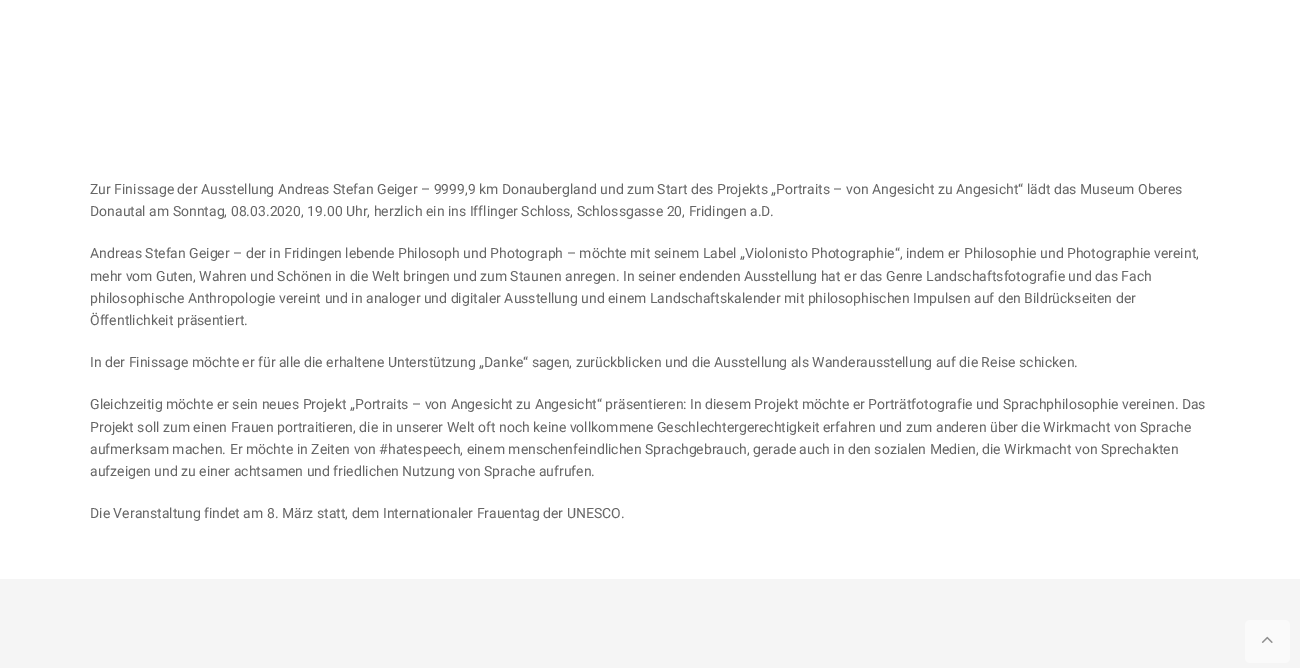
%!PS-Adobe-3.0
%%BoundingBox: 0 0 1300 668
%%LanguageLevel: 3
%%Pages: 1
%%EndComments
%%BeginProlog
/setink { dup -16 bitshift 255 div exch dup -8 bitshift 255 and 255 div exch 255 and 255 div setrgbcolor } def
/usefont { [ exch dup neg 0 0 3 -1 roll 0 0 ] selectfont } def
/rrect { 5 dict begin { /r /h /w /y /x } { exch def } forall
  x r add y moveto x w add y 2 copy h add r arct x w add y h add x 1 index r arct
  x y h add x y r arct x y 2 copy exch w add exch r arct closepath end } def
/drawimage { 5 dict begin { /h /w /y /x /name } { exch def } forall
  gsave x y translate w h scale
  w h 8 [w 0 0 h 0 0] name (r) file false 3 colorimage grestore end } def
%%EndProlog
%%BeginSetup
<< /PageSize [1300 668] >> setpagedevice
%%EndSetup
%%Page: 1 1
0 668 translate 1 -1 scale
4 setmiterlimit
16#FFFFFF setink
0 0 1300 668 rectfill
/Roboto-Regular 14 usefont
16#666666 setink
[
    [(Zur Finissage der Ausstellung Andreas Stefan Geiger – 9999,9 km Donaubergland und zum Start des Projekts „Portraits – von Angesicht zu Angesicht“ lädt das Museum Oberes) 90 194]
    [(Donautal am Sonntag, 08.03.2020, 19.00 Uhr, herzlich ein ins Ifflinger Schloss, Schlossgasse 20, Fridingen a.D.) 90 216]
    [(Andreas Stefan Geiger – der in Fridingen lebende Philosoph und Photograph – möchte mit seinem Label „Violonisto Photographie“, indem er Philosophie und Photographie vereint,) 90 258]
    [(mehr vom Guten, Wahren und Schönen in die Welt bringen und zum Staunen anregen. In seiner endenden Ausstellung hat er das Genre Landschaftsfotografie und das Fach) 90 281]
    [(philosophische Anthropologie vereint und in analoger und digitaler Ausstellung und einem Landschaftskalender mit philosophischen Impulsen auf den Bildrückseiten der) 90 303]
    [(Öffentlichkeit präsentiert.) 90 325]
    [(In der Finissage möchte er für alle die erhaltene Unterstützung „Danke“ sagen, zurückblicken und die Ausstellung als Wanderausstellung auf die Reise schicken.) 90 367]
    [(Gleichzeitig möchte er sein neues Projekt „Portraits – von Angesicht zu Angesicht“ präsentieren: In diesem Projekt möchte er Porträtfotografie und Sprachphilosophie vereinen. Das) 90 409]
    [(Projekt soll zum einen Frauen portraitieren, die in unserer Welt oft noch keine vollkommene Geschlechtergerechtigkeit erfahren und zum anderen über die Wirkmacht von Sprache) 90 432]
    [(aufmerksam machen. Er möchte in Zeiten von #hatespeech, einem menschenfeindlichen Sprachgebrauch, gerade auch in den sozialen Medien, die Wirkmacht von Sprechakten) 90 454]
    [(aufzeigen und zu einer achtsamen und friedlichen Nutzung von Sprache aufrufen.) 90 476]
    [(Die Veranstaltung findet am 8. März statt, dem Internationaler Frauentag der UNESCO.) 90 518]
] { aload pop moveto show } forall
16#F5F5F5 setink
0 579 1300 89 rectfill
16#FAFAFA setink
1245 620 45 43 5 rrect fill
(img1.raw) 1261 636 12 7 drawimage
showpage
%%EOF
